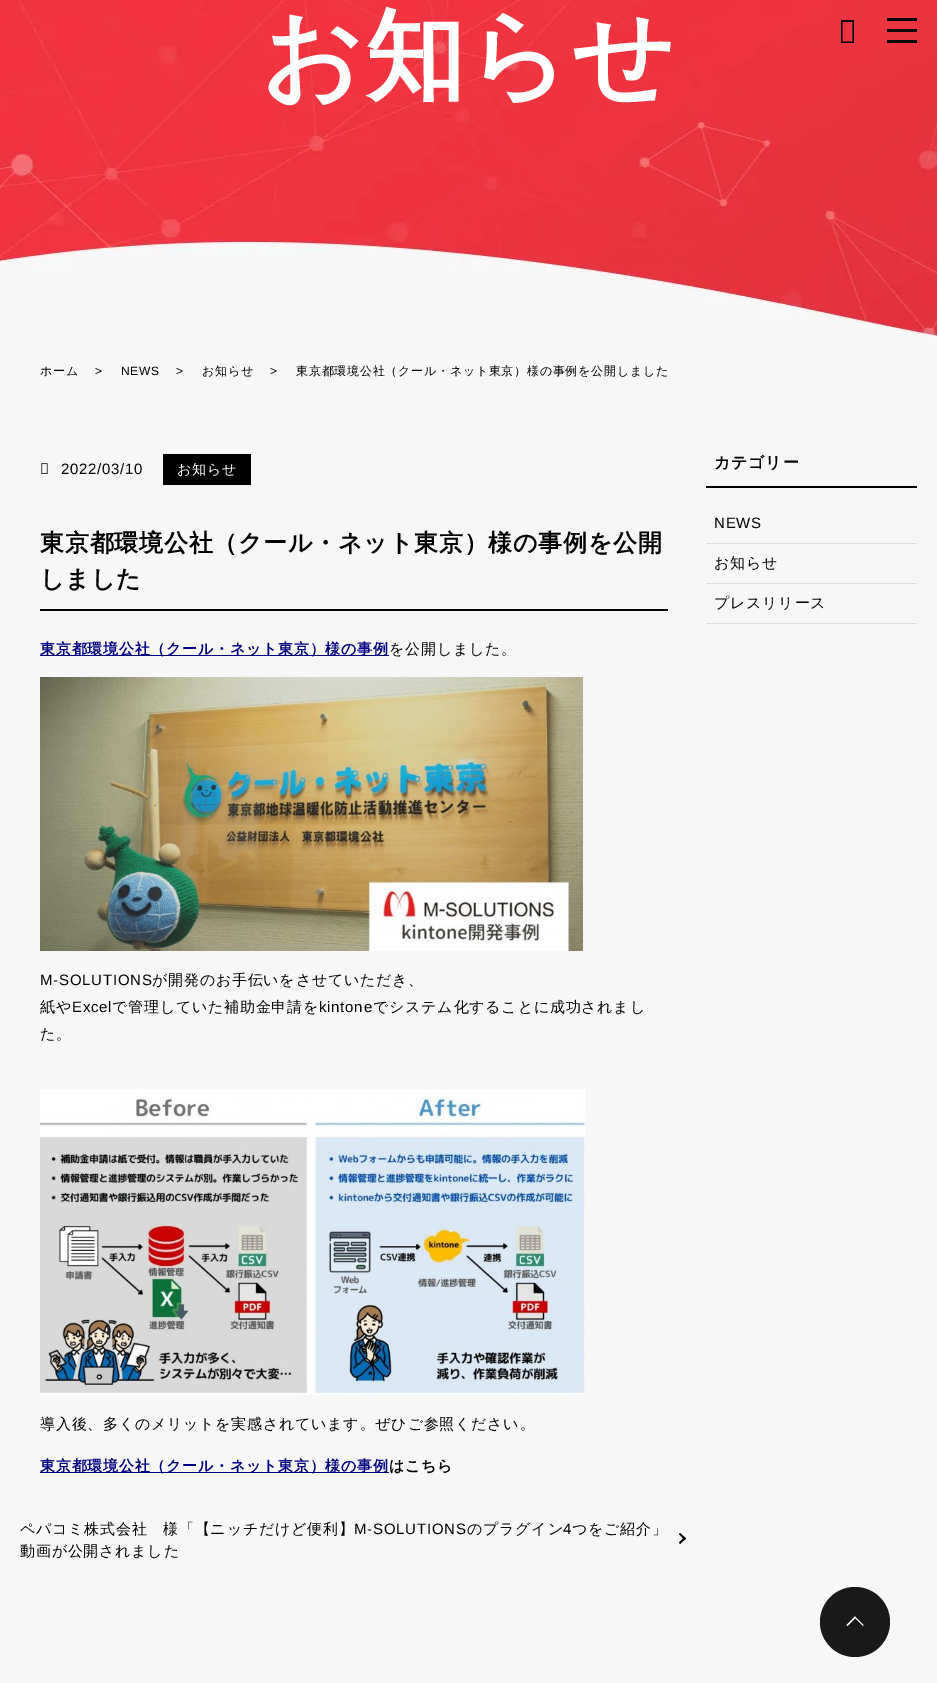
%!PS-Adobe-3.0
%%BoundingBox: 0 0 937 1683
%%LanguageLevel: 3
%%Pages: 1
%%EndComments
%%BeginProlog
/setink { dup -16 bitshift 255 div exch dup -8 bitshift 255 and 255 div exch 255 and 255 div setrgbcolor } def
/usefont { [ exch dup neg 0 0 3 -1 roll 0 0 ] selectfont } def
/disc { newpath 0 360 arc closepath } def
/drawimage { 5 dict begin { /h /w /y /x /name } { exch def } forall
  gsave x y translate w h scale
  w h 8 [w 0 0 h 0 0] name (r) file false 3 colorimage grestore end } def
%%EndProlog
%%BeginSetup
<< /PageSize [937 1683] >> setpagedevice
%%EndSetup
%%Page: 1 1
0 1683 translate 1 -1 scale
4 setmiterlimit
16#F7F7F7 setink
0 0 937 1683 rectfill
(img1.raw) 0 0 937 340 drawimage
/WenQuanYiZenHei-Bold 100 usefont
16#FFFFFF setink
261 90 moveto 2 0 (お知らせ) ashow
/WenQuanYiZenHei-Medium 12 usefont
16#000000 setink
40 375 moveto 0.75 0 (ホーム) ashow
/LiberationSans-Regular 12 usefont
95 375 moveto 0.75 0 (>) ashow
121 375 moveto 0.75 0 (NEWS) ashow
176 375 moveto 0.75 0 (>) ashow
/WenQuanYiZenHei-Medium 12 usefont
202 375 moveto 0.75 0 (お知らせ) ashow
/LiberationSans-Regular 12 usefont
270 375 moveto 0.75 0 (>) ashow
/WenQuanYiZenHei-Medium 12 usefont
296 375 moveto 0.75 0 (東京都環境公社（クール・ネット東京）様の事例を公開しました) ashow
(img2.raw) 41 463 7 11 drawimage
/LiberationSans-Regular 15 usefont
61 474 moveto 0.75 0 (2022/03/10) ashow
163 454 88 31 rectfill
/WenQuanYiZenHei-Medium 14 usefont
16#FFFFFF setink
177 474 moveto 0.75 0 (お知らせ) ashow
16#000000 setink
40 609 628 2 rectfill
/WenQuanYiZenHei-Bold 24 usefont
40 551 moveto 0.75 0 (東京都環境公社（クール・ネット東京）様の事例を公開) ashow
40 587 moveto 0.75 0 (しました) ashow
16#000080 setink
40 655 349 1 rectfill
/WenQuanYiZenHei-Bold 15 usefont
40 654 moveto 0.75 0 (東京都環境公社（クール・ネット東京）様の事例) ashow
/WenQuanYiZenHei-Medium 15 usefont
16#000000 setink
389 654 moveto 0.75 0 (を公開しました。) ashow
(img3.raw) 40 677 543 274 drawimage
/LiberationSans-Regular 15 usefont
40 985 moveto 0.75 0 (M-SOLUTIONS) ashow
/WenQuanYiZenHei-Medium 15 usefont
152 985 moveto 0.75 0 (が開発のお手伝いをさせていただき、) ashow
40 1012 moveto 0.75 0 (紙や) ashow
/LiberationSans-Regular 15 usefont
72 1012 moveto 0.75 0 (Excel) ashow
/WenQuanYiZenHei-Medium 15 usefont
112 1012 moveto 0.75 0 (で管理していた補助金申請を) ashow
/LiberationSans-Regular 15 usefont
319 1012 moveto 0.75 0 (kintone) ashow
/WenQuanYiZenHei-Medium 15 usefont
373 1012 moveto 0.75 0 (でシステム化することに成功されまし) ashow
40 1039 moveto 0.75 0 (た。) ashow
(img4.raw) 40 1089 545 306 drawimage
40 1429 moveto 0.75 0 (導入後、多くのメリットを実感されています。ぜひご参照ください。) ashow
16#000080 setink
40 1472 349 1 rectfill
/WenQuanYiZenHei-Bold 15 usefont
40 1471 moveto 0.75 0 (東京都環境公社（クール・ネット東京）様の事例) ashow
16#000000 setink
389 1471 moveto 0.75 0 (はこちら) ashow
/WenQuanYiZenHei-Medium 15 usefont
20 1534 moveto 0.75 0 (ペパコミ株式会社　様「【ニッチだけど便利】) ashow
/LiberationSans-Regular 15 usefont
354 1534 moveto 0.75 0 (M-SOLUTIONS) ashow
/WenQuanYiZenHei-Medium 15 usefont
467 1534 moveto 0.75 0 (のプラグイン) ashow
/LiberationSans-Regular 15 usefont
563 1534 moveto 0.75 0 (4) ashow
/WenQuanYiZenHei-Medium 15 usefont
572 1534 moveto 0.75 0 (つをご紹介」) ashow
680 1533 moveto 686 1538.5 lineto 684.5 1540 lineto 679 1534 lineto closepath fill
684.5 1537 moveto 686 1538.5 lineto 680 1544 lineto 679 1542.5 lineto closepath fill
20 1556 moveto 0.75 0 (動画が公開されました) ashow
706 486 211 2 rectfill
/WenQuanYiZenHei-Bold 16 usefont
714 468 moveto 0.75 0 (カテゴリー) ashow
16#DEDEDE setink
706 543 211 1 rectfill
/LiberationSans-Regular 15 usefont
16#000000 setink
714 528 moveto 0.75 0 (NEWS) ashow
16#DEDEDE setink
706 583 211 1 rectfill
/WenQuanYiZenHei-Medium 15 usefont
16#000000 setink
714 568 moveto 0.75 0 (お知らせ) ashow
16#DEDEDE setink
706 623 211 1 rectfill
16#000000 setink
714 608 moveto 0.75 0 (プレスリリース) ashow
841 43 moveto 841 20 lineto 854 20 lineto 854 43 lineto closepath 842.5 41.5 moveto 852.5 41.5 lineto 852.5 22 lineto 842.5 22 lineto closepath fill
[
    [887 18 30 3 16#000000]
    [887 29 30 3 16#000000]
    [887 40 30 3 16#000000]
] { aload pop setink rectfill } forall
16#191919 setink
855 1622 35 disc fill
16#FFFFFF setink
855 1616.5 moveto 863.5 1625 lineto 863 1626 lineto 854.5 1617.5 lineto closepath fill
855 1616.5 moveto 856 1617.5 lineto 847.5 1626 lineto 846.5 1625 lineto closepath fill
showpage
%%EOF
